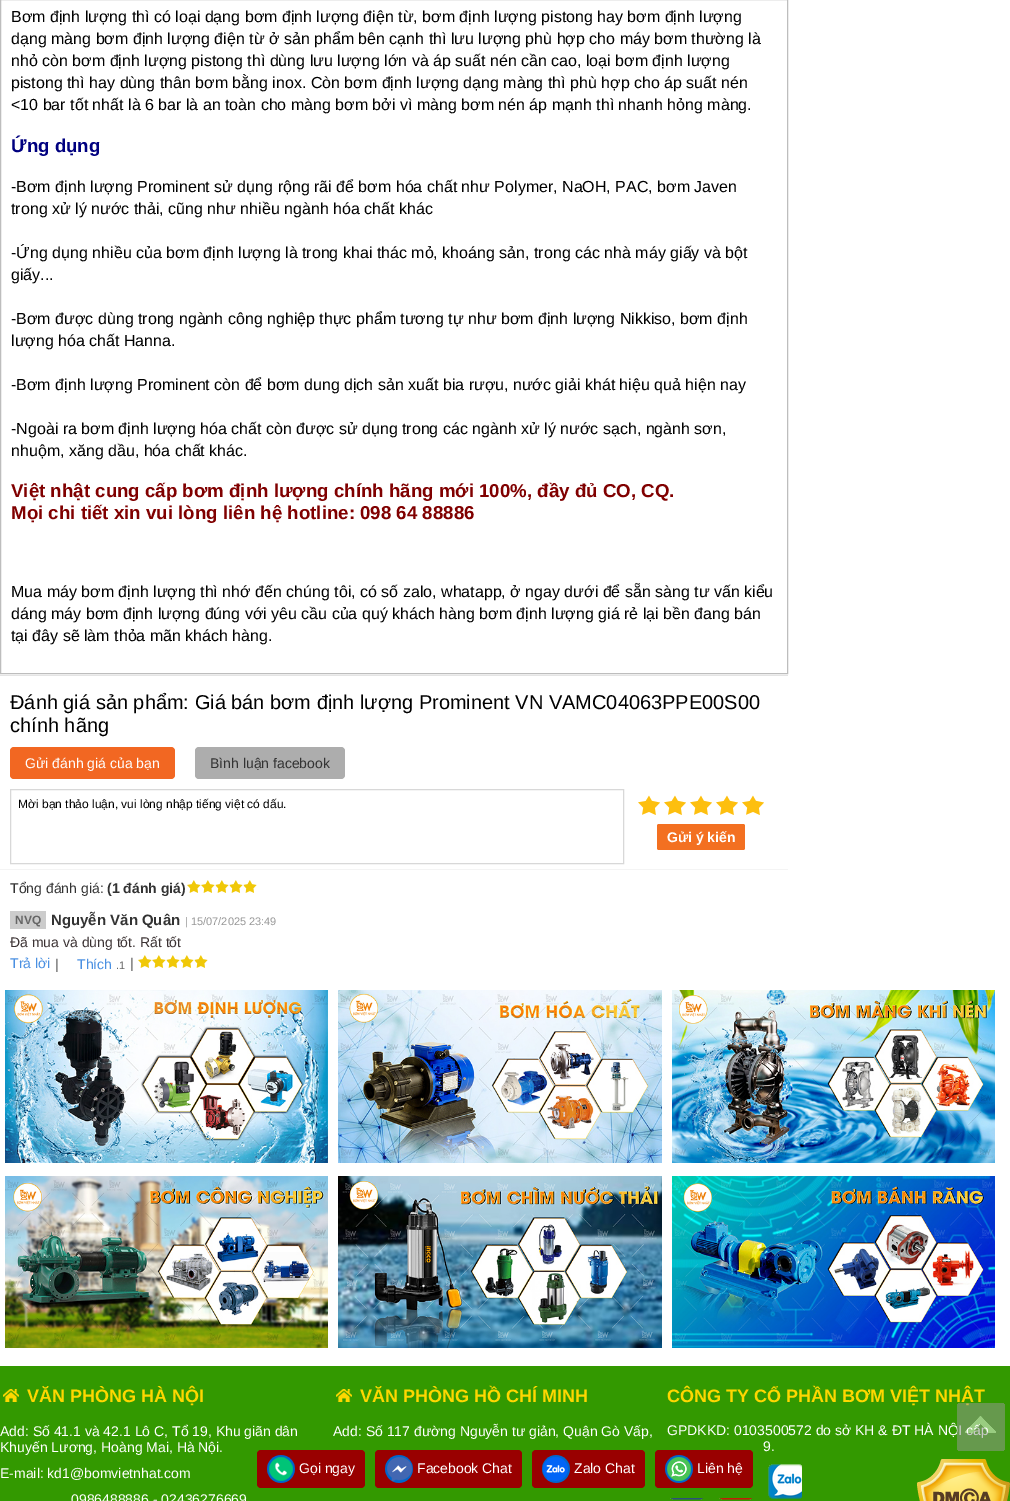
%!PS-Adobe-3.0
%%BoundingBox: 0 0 1010 1501
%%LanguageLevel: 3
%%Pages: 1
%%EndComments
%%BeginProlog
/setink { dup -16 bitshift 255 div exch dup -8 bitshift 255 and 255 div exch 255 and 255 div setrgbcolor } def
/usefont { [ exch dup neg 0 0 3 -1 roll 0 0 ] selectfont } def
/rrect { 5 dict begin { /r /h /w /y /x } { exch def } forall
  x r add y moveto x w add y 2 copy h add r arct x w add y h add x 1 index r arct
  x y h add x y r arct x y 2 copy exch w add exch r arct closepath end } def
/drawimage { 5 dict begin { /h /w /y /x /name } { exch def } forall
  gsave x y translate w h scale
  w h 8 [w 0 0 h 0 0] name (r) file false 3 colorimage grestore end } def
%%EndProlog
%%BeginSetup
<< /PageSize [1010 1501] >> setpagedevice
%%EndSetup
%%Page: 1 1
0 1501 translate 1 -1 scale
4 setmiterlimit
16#FFFFFF setink
0 0 1010 1501 rectfill
16#BDBDBD setink
0.5 -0.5 787 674 rectstroke
/LiberationSans-Regular 16 usefont
16#000000 setink
[
    [(Bơm định lượng thì có loại dạng bơm định lượng điện từ, bơm định lượng pistong hay bơm định lượng) 11 22]
    [(dạng màng bơm định lượng điện từ ở sản phẩm bên cạnh thì lưu lượng phù hợp cho máy bơm thường là) 11 44]
    [(nhỏ còn bơm định lượng pistong thì dùng lưu lượng lớn và áp suất nén cần cao, loại bơm định lượng) 11 66]
    [(pistong thì hay dùng thân bơm bằng inox. Còn bơm định lượng dạng màng thì phù hợp cho áp suất nén) 11 88]
    [(<10 bar tốt nhất là 6 bar là an toàn cho màng bơm bởi vì màng bơm nén áp mạnh thì nhanh hỏng màng.) 11 110]
] { aload pop moveto show } forall
/LiberationSans-Bold 18.7 usefont
16#000080 setink
11 152 moveto (Ứng dụng) show
/LiberationSans-Regular 16 usefont
16#000000 setink
[
    [(-Bơm định lượng Prominent sử dụng rộng rãi để bơm hóa chất như Polymer, NaOH, PAC, bơm Javen) 11 192]
    [(trong xử lý nước thải, cũng như nhiều ngành hóa chất khác) 11 214]
    [(-Ứng dụng nhiều của bơm định lượng là trong khai thác mỏ, khoáng sản, trong các nhà máy giấy và bột) 11 258]
    [(giấy...) 11 280]
    [(-Bơm được dùng trong ngành công nghiệp thực phẩm tương tự như bơm định lượng Nikkiso, bơm định) 11 324]
    [(lượng hóa chất Hanna.) 11 346]
    [(-Bơm định lượng Prominent còn để bơm dung dịch sản xuất bia rượu, nước giải khát hiệu quả hiện nay) 11 390]
    [(-Ngoài ra bơm định lượng hóa chất còn được sử dụng trong các ngành xử lý nước sạch, ngành sơn,) 11 434]
    [(nhuộm, xăng dầu, hóa chất khác.) 11 456]
] { aload pop moveto show } forall
/LiberationSans-Bold 18.7 usefont
16#800000 setink
11 497 moveto (Việt nhật cung cấp bơm định lượng chính hãng mới 100%, đầy đủ CO, CQ.) show
11 519 moveto (Mọi chi tiết xin vui lòng liên hệ hotline: 098 64 88886) show
/LiberationSans-Regular 16 usefont
16#000000 setink
[
    [(Mua máy bơm định lượng thì nhớ đến chúng tôi, có số zalo, whatapp, ở ngay dưới để sẵn sàng tư vấn kiểu) 11 597]
    [(dáng máy bơm định lượng đúng với yêu cầu của quý khách hàng bơm định lượng giá rẻ lại bền đang bán) 11 619]
    [(tại đây sẽ làm thỏa mãn khách hàng.) 11 641]
] { aload pop moveto show } forall
16#E4E4E4 setink
0 675 788 1 rectfill
/LiberationSans-Regular 20 usefont
16#000000 setink
10 709 moveto (Đánh giá sản phẩm: Giá bán bơm định lượng Prominent VN VAMC04063PPE00S00) show
10 732 moveto (chính hãng) show
16#F26722 setink
10 747 165 32 4 rrect fill
/LiberationSans-Regular 14 usefont
16#FFFFFF setink
25 768 moveto (Gửi đánh giá của bạn) show
16#ADADAD setink
195 747 150 32 4 rrect fill
16#333333 setink
210 768 moveto (Bình luận facebook) show
16#F4F4F4 setink
0 869 788 1 rectfill
16#D8D8D8 setink
10.5 789.5 613 74 rectstroke
/LiberationSans-Regular 12 usefont
16#000000 setink
18 808 moveto (Mời bạn thảo luận, vui lòng nhập tiếng việt có dấu.) show
(img1.raw) 638 795 22 20 drawimage
(img1.raw) 664 795 22 20 drawimage
(img1.raw) 690 795 22 20 drawimage
(img1.raw) 716 795 22 20 drawimage
(img1.raw) 742 795 22 20 drawimage
16#F37021 setink
657 824 88 26 2 rrect fill
/LiberationSans-Bold 14 usefont
16#FFFFFF setink
667 842 moveto (Gửi ý kiến) show
/LiberationSans-Regular 14 usefont
16#333333 setink
10 893 moveto (Tổng đánh giá:) show
/LiberationSans-Bold 14 usefont
107 893 moveto (\(1 đánh giá\)) show
(img2.raw) 187 880 70 13 drawimage
16#CCCCCC setink
10 911 36 18 rectfill
/LiberationSans-Bold 12 usefont
16#666666 setink
15 924 moveto (NVQ) show
/LiberationSans-Bold 15 usefont
16#333333 setink
51 925 moveto (Nguyễn Văn Quân) show
/LiberationSans-Regular 11 usefont
16#989898 setink
185 925 moveto (| 15/07/2025 23:49) show
/LiberationSans-Regular 14 usefont
16#3B3233 setink
10 947 moveto (Đã mua và dùng tốt. Rất tốt) show
16#4A90E2 setink
10 968 moveto (Trả lời) show
16#666666 setink
55 969 moveto (|) show
16#4A90E2 setink
77 969 moveto (Thích) show
/LiberationSans-Regular 11 usefont
16#666666 setink
116 969 moveto (.1) show
/LiberationSans-Regular 14 usefont
130 968 moveto (|) show
(img2.raw) 138 955 70 13 drawimage
(img3.raw) 5 990 323 173 drawimage
(img4.raw) 338 990 324 173 drawimage
(img5.raw) 672 990 323 173 drawimage
(img6.raw) 5 1176 323 172 drawimage
(img7.raw) 338 1176 324 172 drawimage
(img8.raw) 672 1176 323 172 drawimage
16#339900 setink
0 1366 1010 135 rectfill
(img9.raw) 3 1389 16 13 drawimage
/LiberationSans-Bold 18 usefont
16#FED700 setink
27 1402 moveto (VĂN PHÒNG HÀ NỘI) show
/LiberationSans-Regular 14 usefont
16#FFFFFF setink
[
    [(Add: Số 41.1 và 42.1 Lô C, Tổ 19, Khu giãn dân) 0 1436]
    [(Khuyến Lương, Hoàng Mai, Hà Nội.) 0 1452]
    [(E-mail: kd1@bomvietnhat.com) 0 1478]
    [(0986488886 - 02436276669) 71 1504]
] { aload pop moveto show } forall
(img9.raw) 336 1389 16 13 drawimage
/LiberationSans-Bold 18 usefont
16#FED700 setink
360 1402 moveto (VĂN PHÒNG HỒ CHÍ MINH) show
/LiberationSans-Regular 14 usefont
16#FFFFFF setink
333 1436 moveto (Add: Số 117 đường Nguyễn tư giản, Quận Gò Vấp,) show
/LiberationSans-Bold 18 usefont
16#FED700 setink
667 1402 moveto (CÔNG TY CỔ PHẦN BƠM VIỆT NHẬT) show
/LiberationSans-Regular 14 usefont
16#FFFFFF setink
667 1435 moveto (GPDKKD: 0103500572 do sở KH & ĐT HÀ NỘI cấp) show
763 1451 moveto (9.) show
(img10.raw) 670 1498 33 2 drawimage
(img11.raw) 719 1498 33 2 drawimage
(img12.raw) 768 1464 34 35 drawimage
(img13.raw) 917 1459 93 42 drawimage
(img14.raw) 957 1403 48 48 drawimage
16#990000 setink
257 1450 108 38 4 rrect fill
(img15.raw) 267 1455 28 28 drawimage
16#FFFFFF setink
299 1473 moveto (Gọi ngay) show
16#990000 setink
375 1450 147 38 4 rrect fill
(img16.raw) 385 1455 28 28 drawimage
16#FFFFFF setink
417 1473 moveto (Facebook Chat) show
16#990000 setink
532 1450 113 38 4 rrect fill
(img17.raw) 542 1455 28 28 drawimage
16#FFFFFF setink
574 1473 moveto (Zalo Chat) show
16#990000 setink
655 1450 98 38 4 rrect fill
(img18.raw) 665 1455 28 28 drawimage
16#FFFFFF setink
697 1473 moveto (Liên hệ) show
showpage
%%EOF
